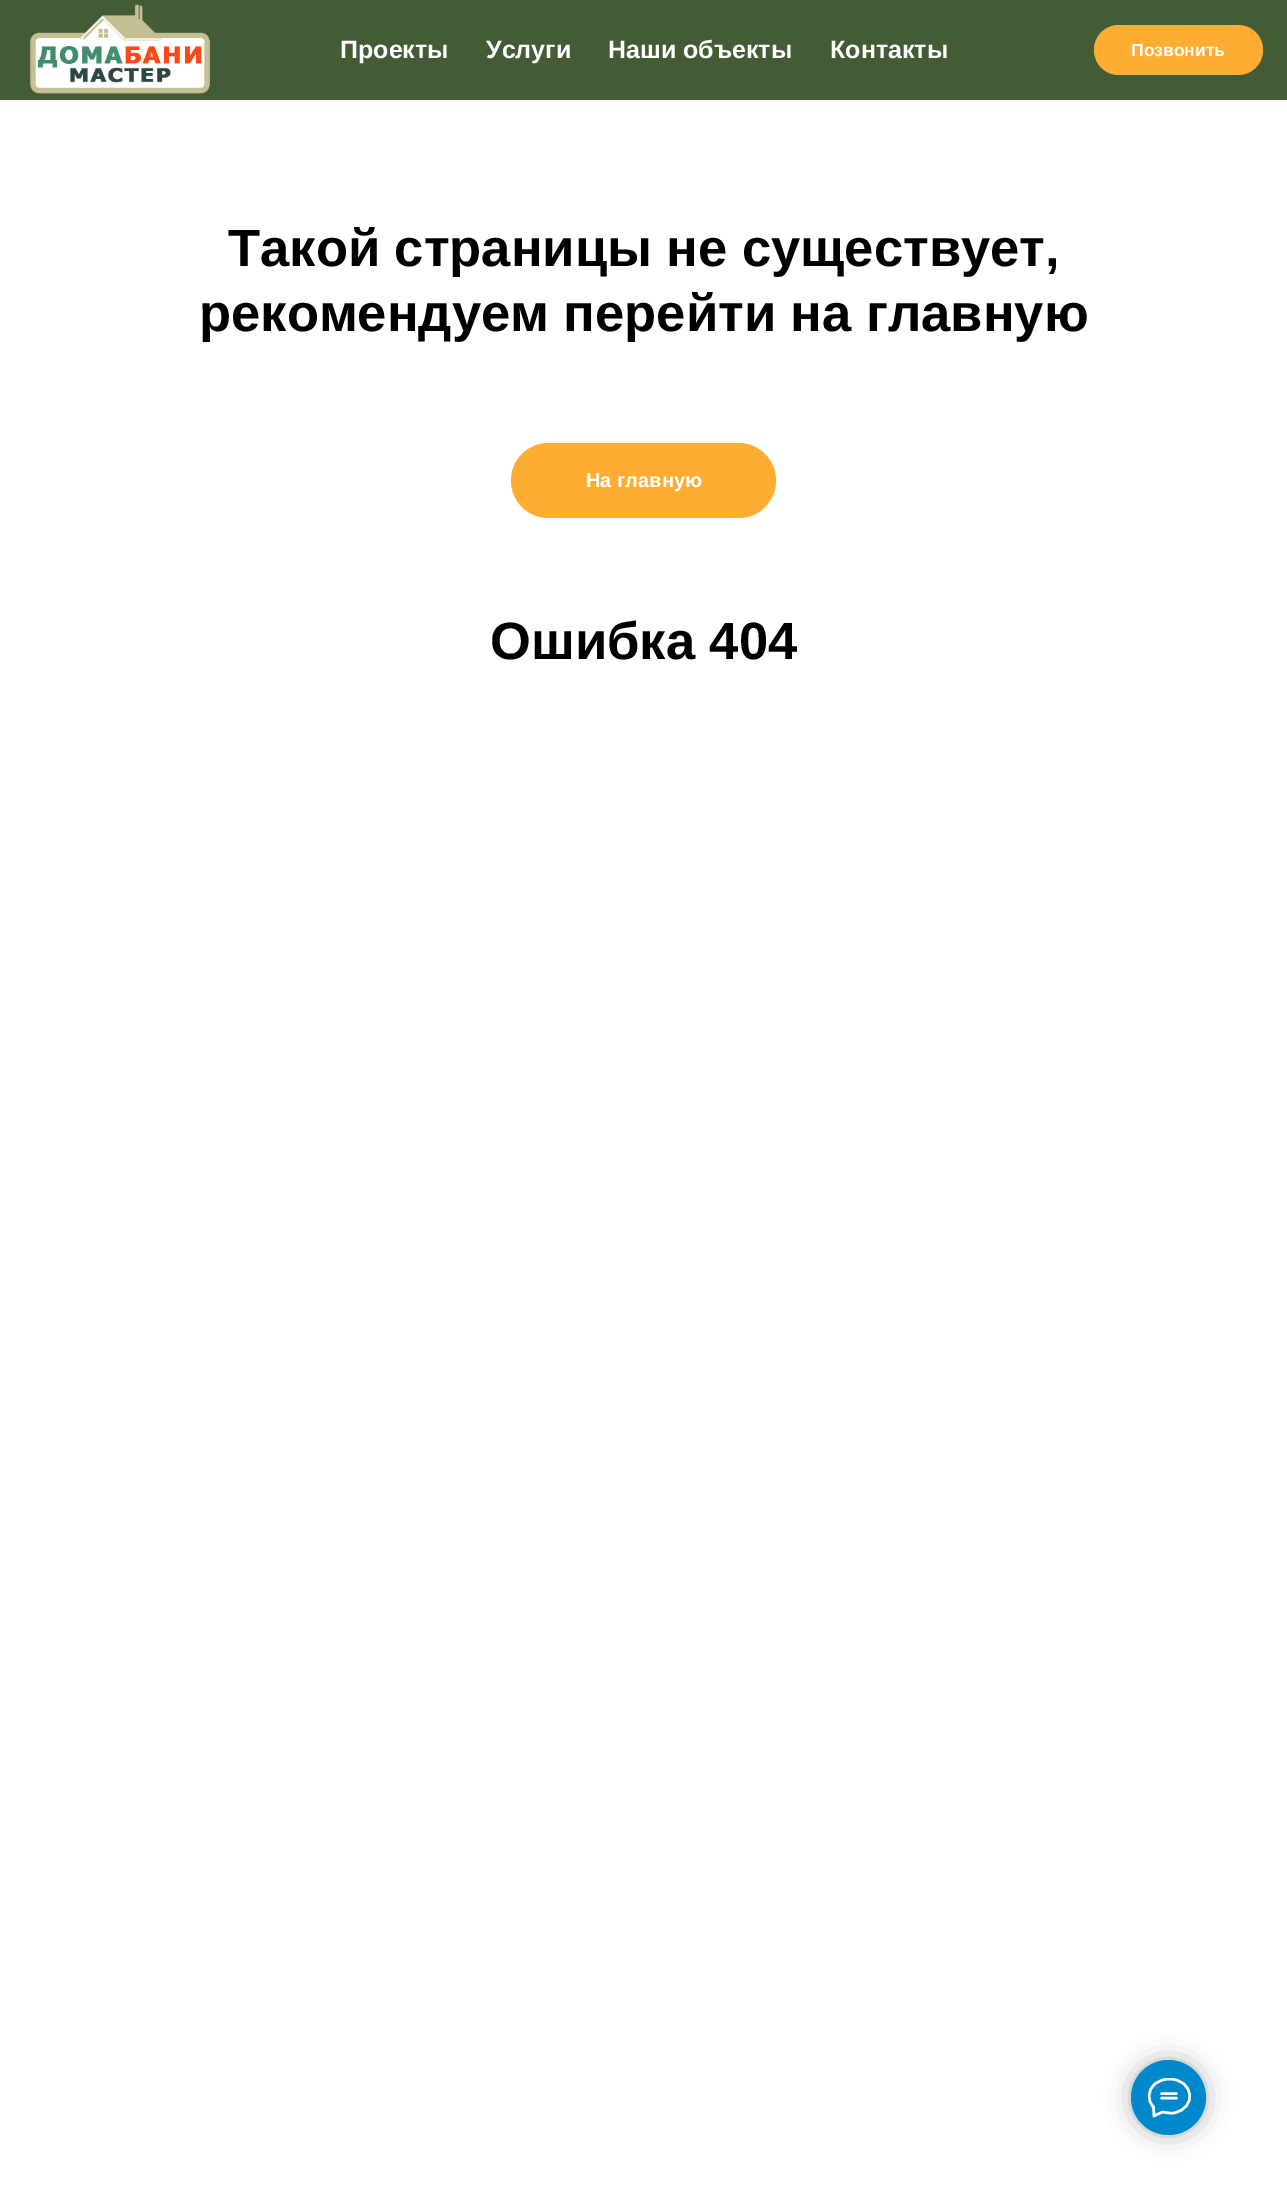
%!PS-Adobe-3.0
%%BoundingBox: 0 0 1287 2197
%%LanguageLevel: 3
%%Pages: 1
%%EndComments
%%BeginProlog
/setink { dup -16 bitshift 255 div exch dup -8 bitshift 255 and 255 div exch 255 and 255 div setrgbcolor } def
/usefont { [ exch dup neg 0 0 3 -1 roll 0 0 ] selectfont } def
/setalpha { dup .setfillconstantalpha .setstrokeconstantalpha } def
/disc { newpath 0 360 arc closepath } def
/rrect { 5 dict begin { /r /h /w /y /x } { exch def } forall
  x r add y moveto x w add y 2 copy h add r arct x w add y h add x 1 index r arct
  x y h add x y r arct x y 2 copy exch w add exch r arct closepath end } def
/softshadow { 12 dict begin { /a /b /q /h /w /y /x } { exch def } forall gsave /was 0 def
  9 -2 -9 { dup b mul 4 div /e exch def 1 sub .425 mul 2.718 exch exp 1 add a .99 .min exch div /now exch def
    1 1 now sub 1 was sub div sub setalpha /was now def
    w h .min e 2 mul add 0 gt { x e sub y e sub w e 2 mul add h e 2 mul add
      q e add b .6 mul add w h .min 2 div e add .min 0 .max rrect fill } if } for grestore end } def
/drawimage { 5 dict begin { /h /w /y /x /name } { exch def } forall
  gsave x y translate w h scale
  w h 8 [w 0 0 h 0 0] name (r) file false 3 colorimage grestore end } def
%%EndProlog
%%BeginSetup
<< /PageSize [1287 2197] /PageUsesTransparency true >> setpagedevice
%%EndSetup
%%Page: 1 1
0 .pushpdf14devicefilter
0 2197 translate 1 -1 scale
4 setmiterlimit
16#FFFFFF setink
0 0 1287 2197 rectfill
16#445C35 setink
0 0 1287 100 rectfill
(img1.raw) 30 4 180 90 drawimage
/LiberationSans-Bold 25 usefont
16#FFFFFF setink
[
    [(Проекты) 340 58]
    [(Услуги) 486 58]
    [(Наши объекты) 608 58]
    [(Контакты) 830 58]
] { aload pop moveto show } forall
16#FFAD32 setink
1094 25 169 50 25 rrect fill
/LiberationSans-Bold 17.5 usefont
16#FFFFFF setink
1131 56 moveto (Позвонить) show
/LiberationSans-Bold 52.5 usefont
16#000000 setink
228 266 moveto (Такой страницы не существует,) show
199 331 moveto (рекомендуем перейти на главную) show
16#FFAD32 setink
511 443 265 75 37.5 rrect fill
/LiberationSans-Bold 20 usefont
16#FFFFFF setink
586 487 moveto (На главную) show
/LiberationSans-Bold 52.5 usefont
16#000000 setink
490 659 moveto (Ошибка 404) show
1131 2060 75 75 37.5 12.5 0.3 softshadow
16#0088CC setink
1168.5 2097.5 37.5 disc fill
gsave
1148 2078 43 40 rectclip
16#FFFFFF setink
2.5 setlinewidth
1 setlinecap
1 setlinejoin
1161.5 2093.5 moveto 1176.5 2093.5 lineto 1161.5 2098 moveto 1176.5 2098 lineto 1153.5 2107 moveto 1147 2100.5 1147.5 2090 1155 2084 curveto 1159 2080.5 1164 2079 1169.5 2079 curveto 1193.5 2079 1198 2108.5 1173.5 2113 curveto 1169.5 2113.5 1166.5 2112.5 1162.5 2112 curveto 1154 2116 lineto closepath stroke
grestore
.poppdf14devicefilter showpage
%%EOF
